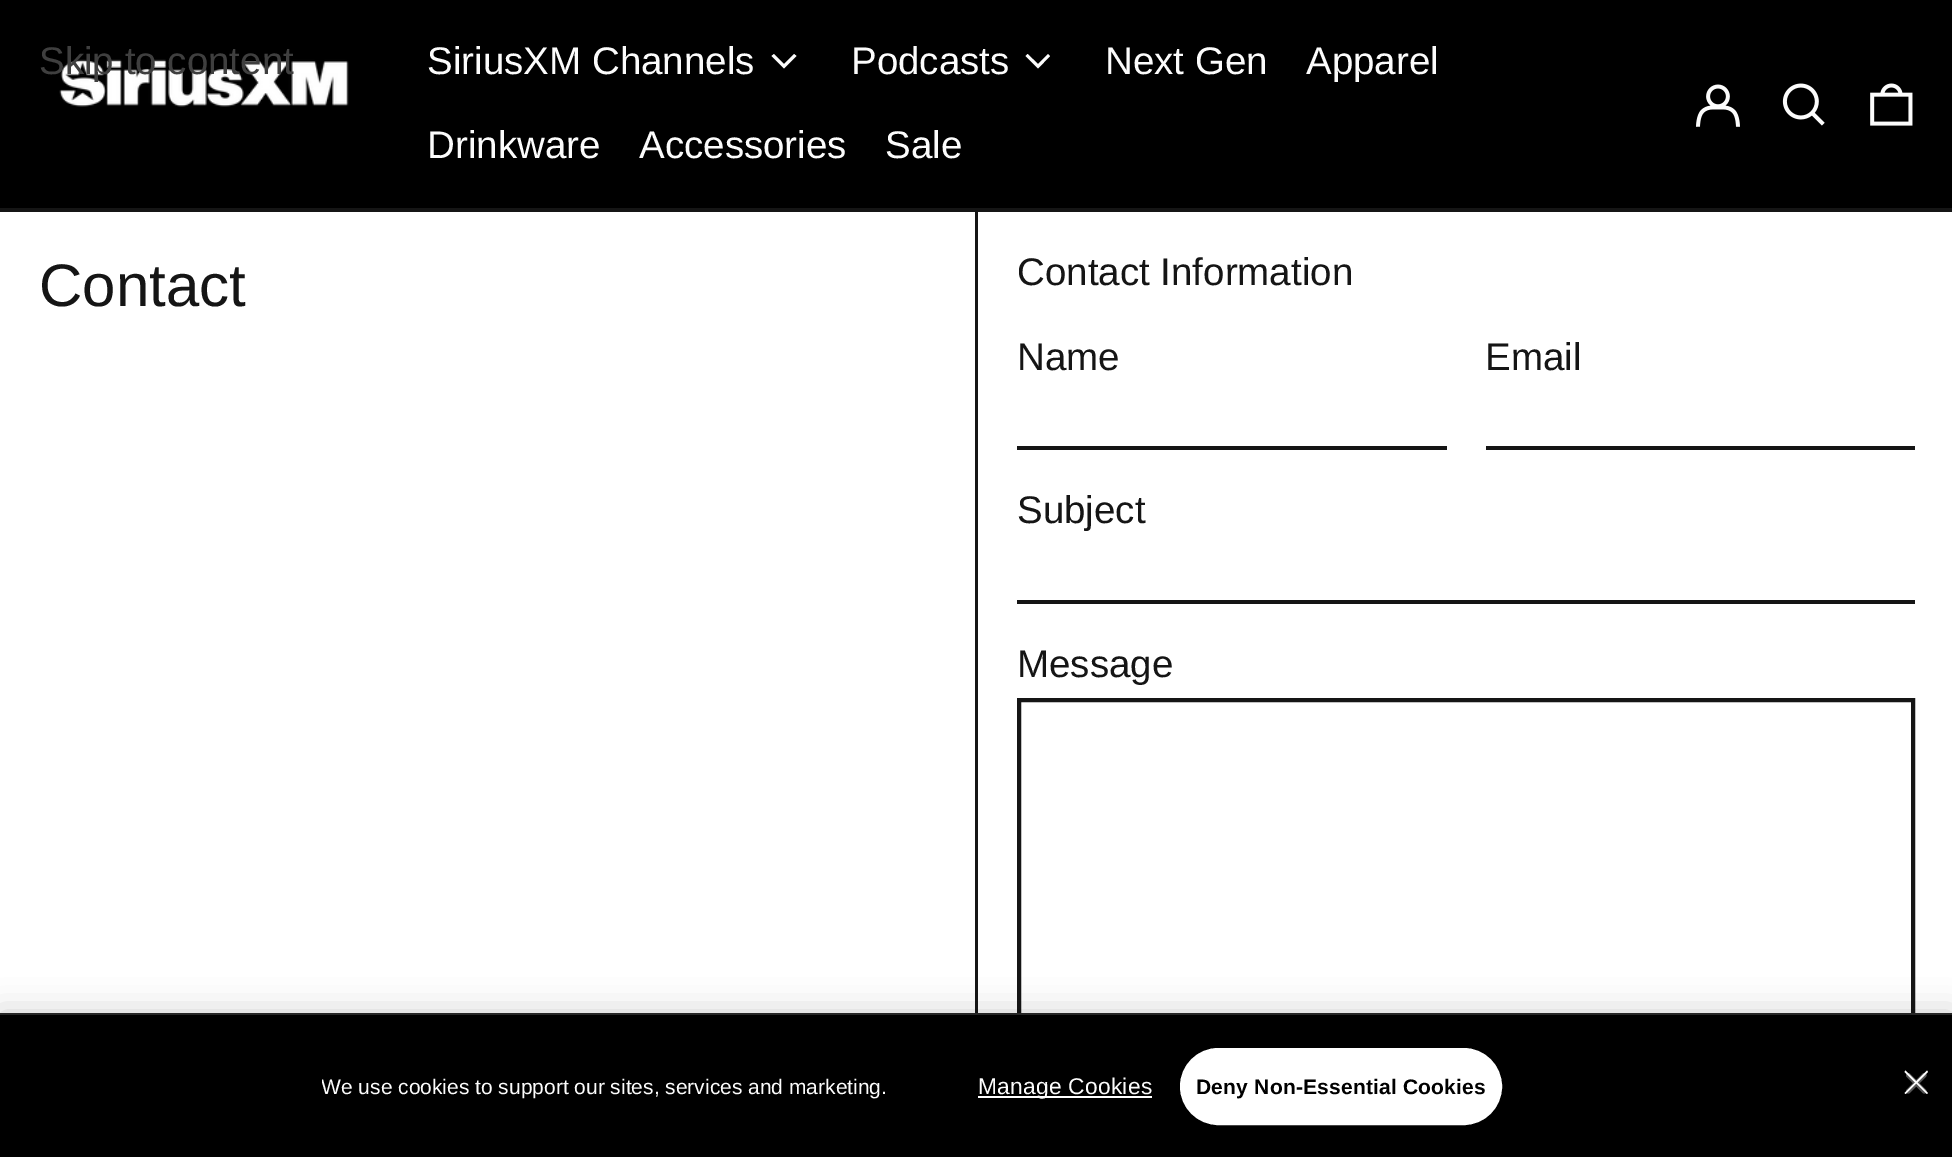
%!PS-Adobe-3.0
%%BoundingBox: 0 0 1952 1157
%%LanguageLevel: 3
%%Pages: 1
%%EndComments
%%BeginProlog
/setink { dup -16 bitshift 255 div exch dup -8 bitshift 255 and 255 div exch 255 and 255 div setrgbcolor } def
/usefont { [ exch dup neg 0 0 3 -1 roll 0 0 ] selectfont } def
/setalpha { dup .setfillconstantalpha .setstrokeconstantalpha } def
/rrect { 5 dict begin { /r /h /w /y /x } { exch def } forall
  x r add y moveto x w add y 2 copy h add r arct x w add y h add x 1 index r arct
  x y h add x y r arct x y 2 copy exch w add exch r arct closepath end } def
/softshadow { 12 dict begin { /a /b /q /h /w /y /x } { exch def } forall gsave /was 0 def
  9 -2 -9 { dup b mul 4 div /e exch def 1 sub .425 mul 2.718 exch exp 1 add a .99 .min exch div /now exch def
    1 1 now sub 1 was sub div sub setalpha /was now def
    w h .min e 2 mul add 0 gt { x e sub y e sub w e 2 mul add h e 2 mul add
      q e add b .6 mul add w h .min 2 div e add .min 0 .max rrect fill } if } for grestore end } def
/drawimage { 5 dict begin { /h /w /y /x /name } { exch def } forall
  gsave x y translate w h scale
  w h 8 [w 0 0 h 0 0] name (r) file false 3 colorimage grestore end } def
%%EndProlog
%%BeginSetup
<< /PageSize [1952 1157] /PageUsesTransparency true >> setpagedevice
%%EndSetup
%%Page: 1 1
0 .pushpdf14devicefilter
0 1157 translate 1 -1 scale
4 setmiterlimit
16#151515 setink
0 0 1952 1157 rectfill
16#000000 setink
0 0 1952 208 rectfill
(img1.raw) 59 59 290 48 drawimage
/LiberationSans-Regular 38.5 usefont
16#3F3F3F setink
39 74 moveto (Skip to content) show
16#FCFCFC setink
427 74 moveto (SiriusXM Channels) show
784 68.5 moveto 771.5 56 lineto 774 54 lineto 784 64 lineto 794 54 lineto 796.5 56 lineto closepath eofill
851 74 moveto (Podcasts) show
1038 68.5 moveto 1025.5 56 lineto 1027.5 54 lineto 1038 64 lineto 1048 54 lineto 1050 56 lineto closepath eofill
[
    [(Next Gen) 1105 74]
    [(Apparel) 1306 74]
    [(Drinkware) 427 158]
    [(Accessories) 639 158]
    [(Sale) 885 158]
] { aload pop moveto show } forall
(img2.raw) 1696 84 44 43 drawimage
(img3.raw) 1782 83 43 43 drawimage
(img4.raw) 1870 83 43 43 drawimage
16#FFFFFF setink
0 212 975 801 rectfill
/LiberationSans-Regular 60 usefont
16#151515 setink
39 306 moveto (Contact) show
16#FFFFFF setink
978 212 974 801 rectfill
/LiberationSans-Regular 38.5 usefont
16#151515 setink
1017 285 moveto (Contact Information) show
1017 370 moveto (Name) show
1017 446 430 4 rectfill
1485 370 moveto (Email) show
1486 446 429 4 rectfill
1017 523 moveto (Subject) show
1017 600 898 4 rectfill
1017 677 moveto (Message) show
4 setlinewidth
1019 700 894 411 rectstroke
16#000000 setink
0 1013 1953 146 0 16 0.2 softshadow
0 1015 1952 142 rectfill
16#262626 setink
0 1013 1952 2 rectfill
gsave
322 1071 565 32 rectclip
/LiberationSans-Regular 21 usefont
16#FCFCFC setink
321 1094 moveto (We use cookies to support our sites, services and marketing.) show
grestore
16#FFFFFF setink
978 1096 174 2 rectfill
/LiberationSans-Regular 22.75 usefont
16#FCFCFC setink
978 1094 moveto 0.25 0 (Manage Cookies) ashow
16#FFFFFF setink
1181 1049 320 75 37.5 rrect gsave fill grestore
2 setlinewidth
stroke
/LiberationSans-Bold 21 usefont
16#000000 setink
1196 1094 moveto 0.2 0 (Deny Non-Essential Cookies) ashow
(img5.raw) 1906 1073 21 21 drawimage
16#FFFFFF setink
1905.5 1070.5 moveto 1928 1093 lineto 1927 1094 lineto 1904.5 1072 lineto closepath fill
1928 1072 moveto 1905.5 1094 lineto 1904.5 1093 lineto 1927 1070.5 lineto closepath fill
.poppdf14devicefilter showpage
%%EOF
